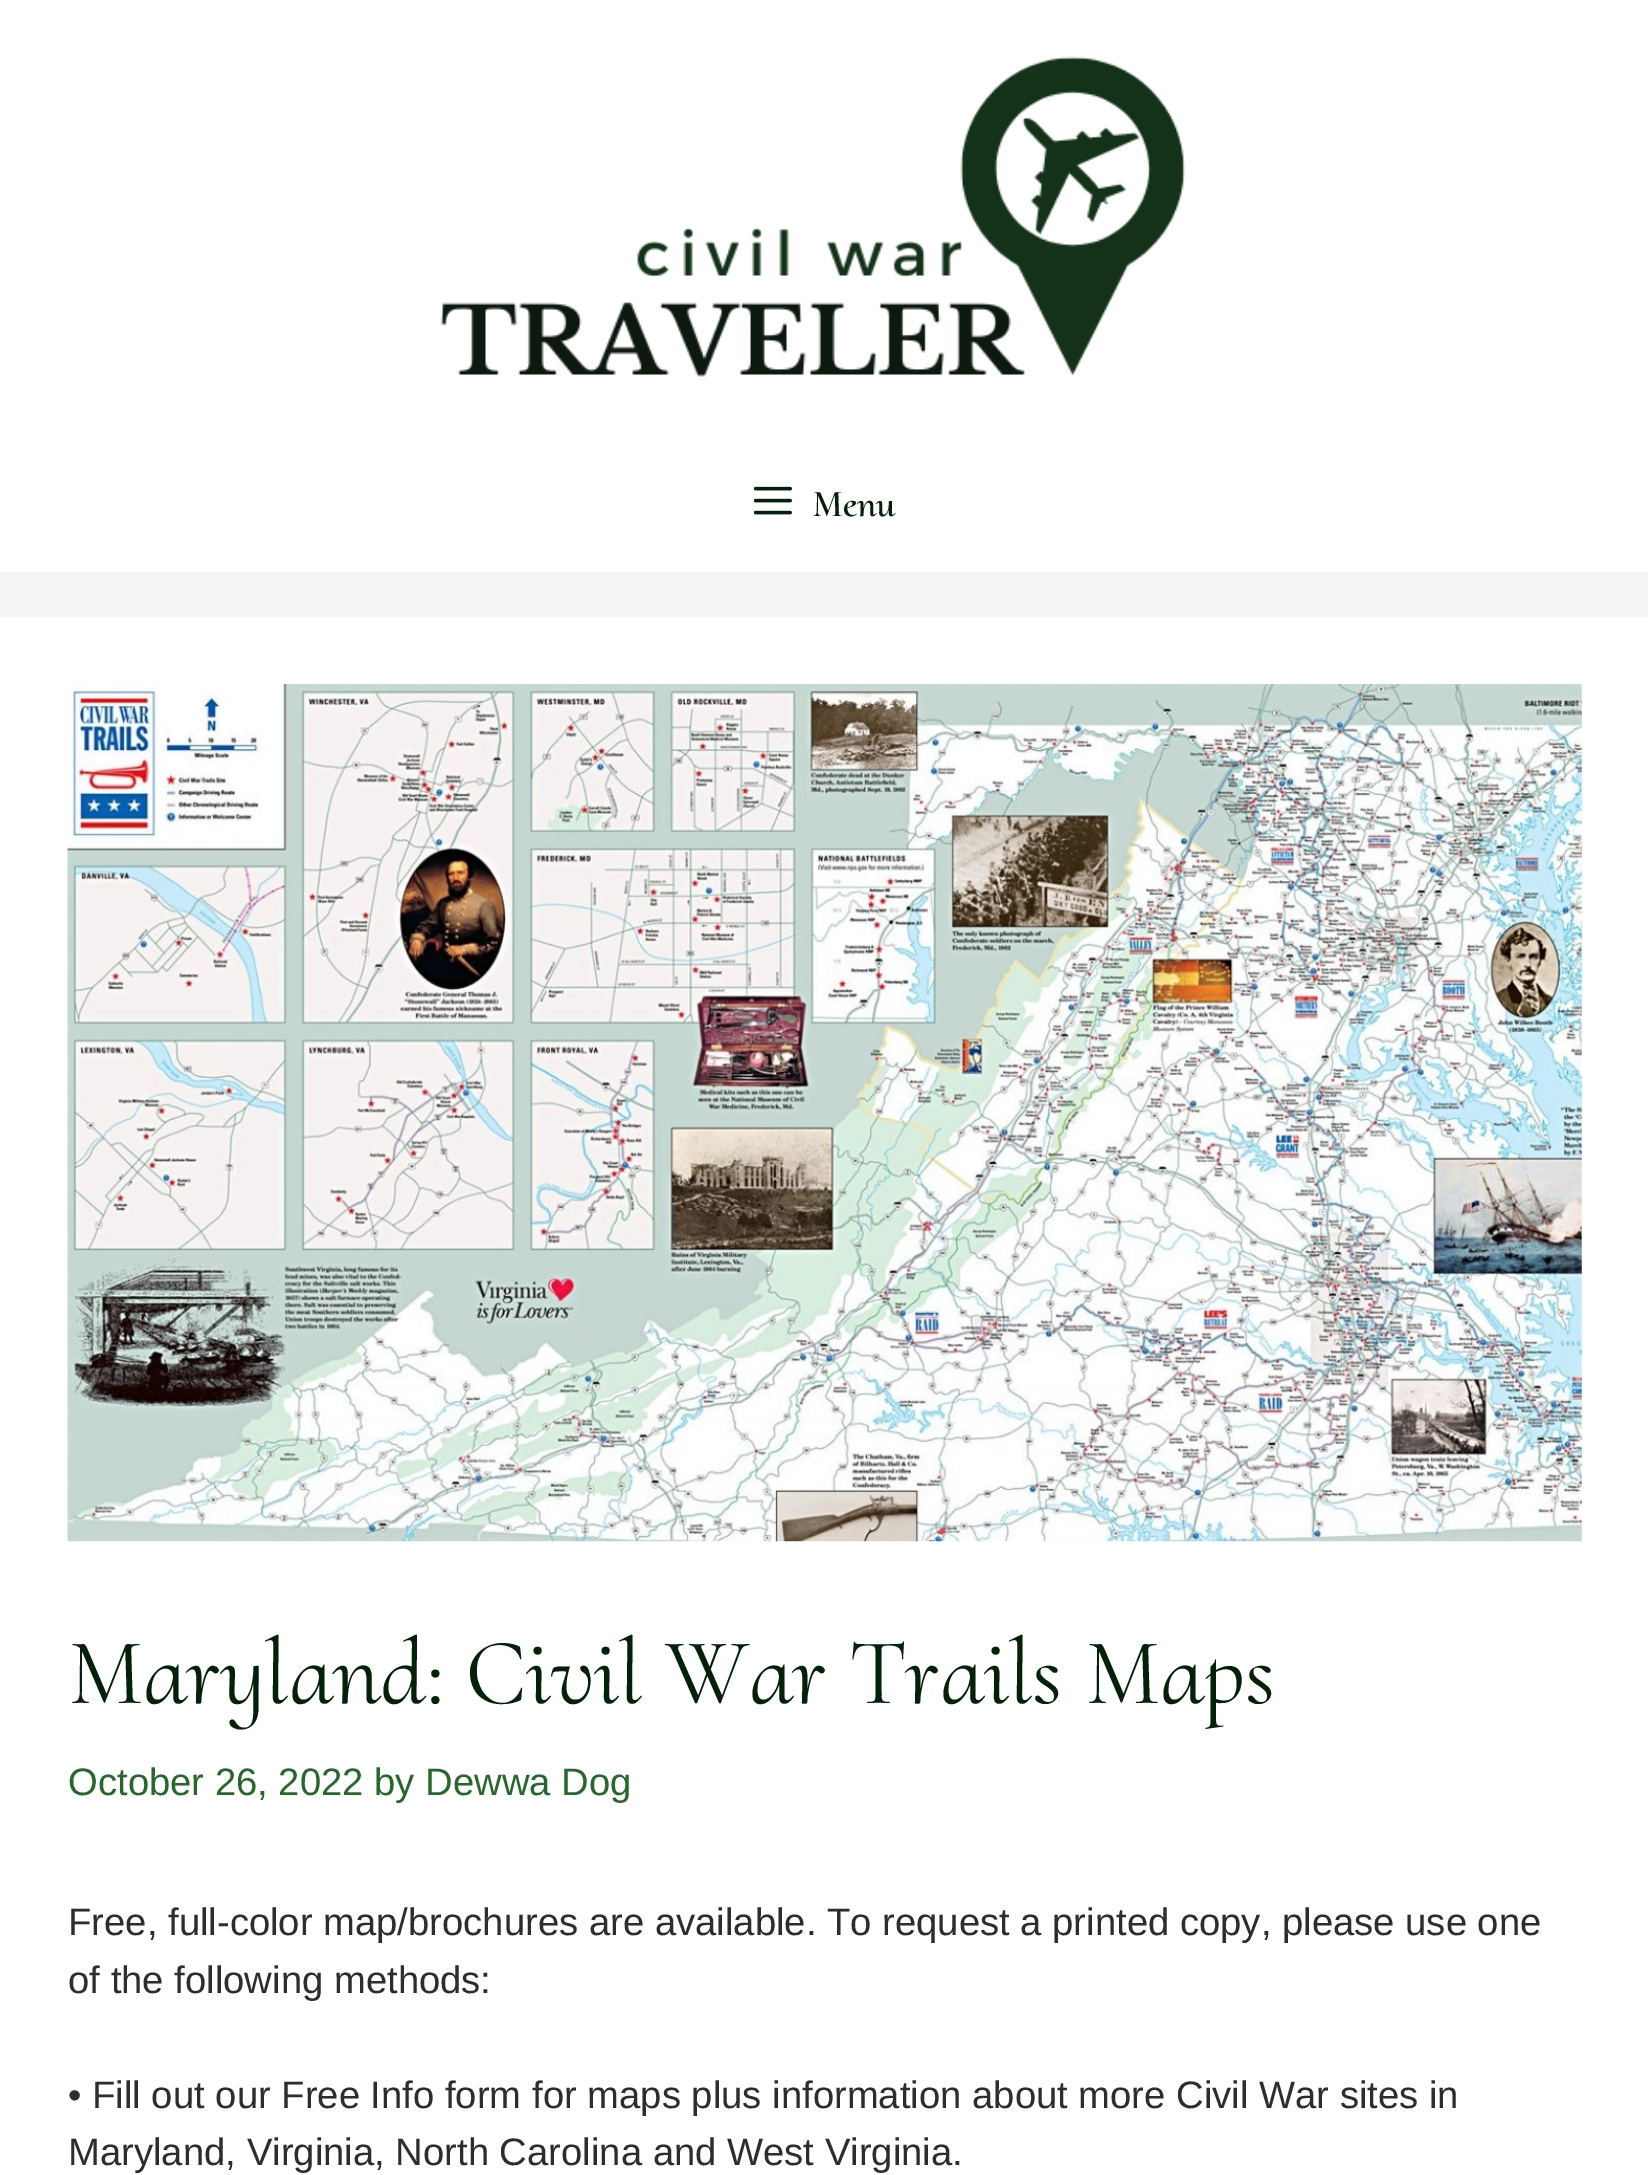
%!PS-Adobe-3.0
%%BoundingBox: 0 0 1648 2175
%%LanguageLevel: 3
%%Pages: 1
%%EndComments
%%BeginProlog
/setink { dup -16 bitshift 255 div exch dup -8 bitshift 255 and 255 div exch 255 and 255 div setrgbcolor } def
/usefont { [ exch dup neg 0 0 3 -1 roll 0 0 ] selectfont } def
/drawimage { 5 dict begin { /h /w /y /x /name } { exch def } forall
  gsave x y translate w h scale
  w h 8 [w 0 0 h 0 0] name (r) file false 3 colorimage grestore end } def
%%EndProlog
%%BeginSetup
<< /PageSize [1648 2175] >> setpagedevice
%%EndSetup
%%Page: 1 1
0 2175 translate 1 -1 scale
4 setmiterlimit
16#F4F4F4 setink
0 0 1648 2175 rectfill
16#FFFFFF setink
0 0 1648 572 rectfill
(img1.raw) 440 56 745 321 drawimage
(img2.raw) 754 486 38 29 drawimage
/CormorantUpright-SemiBold 38.25 usefont
16#032109 setink
812 516 moveto (Menu) show
16#FFFFFF setink
0 617 1648 1558 rectfill
(img3.raw) 67 684 1515 858 drawimage
/CormorantUpright-Regular 94.5 usefont
16#032109 setink
68 1703 moveto (Maryland: Civil War Trails Maps) show
/LiberationSans-Regular 38.25 usefont
16#26682B setink
68 1795 moveto (October 26, 2022 by Dewwa Dog) show
16#2D2D2D setink
[
    [(Free, full-color map/brochures are available. To request a printed copy, please use one) 68 1935]
    [(of the following methods:) 68 1993]
    [(• Fill out our Free Info form for maps plus information about more Civil War sites in) 68 2108]
    [(Maryland, Virginia, North Carolina and West Virginia.) 68 2165]
] { aload pop moveto show } forall
showpage
%%EOF
